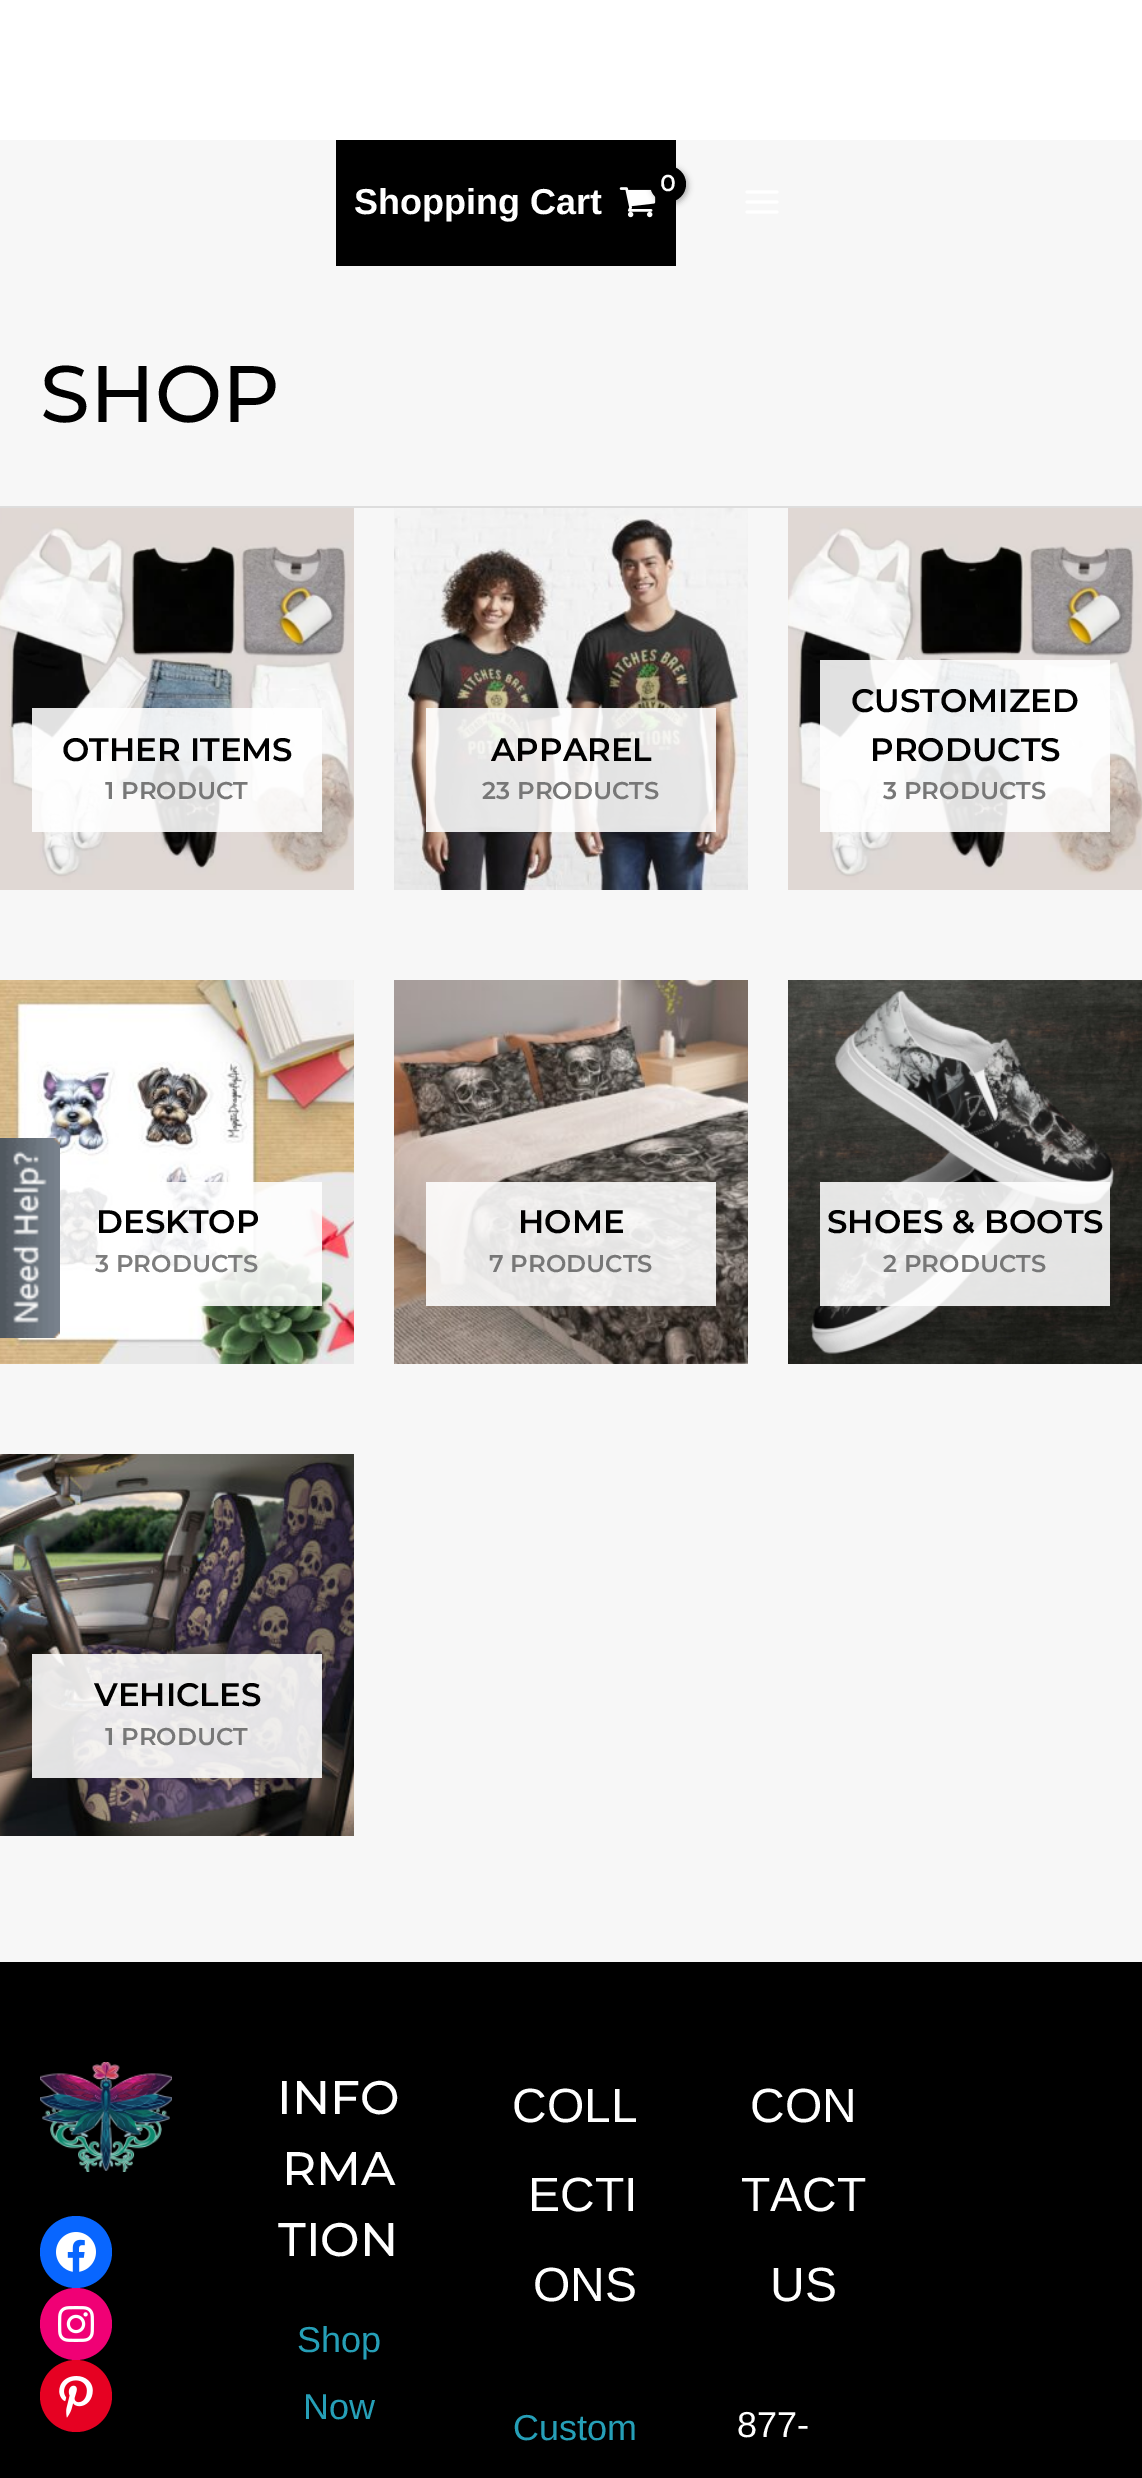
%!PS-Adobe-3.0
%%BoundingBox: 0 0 1142 2478
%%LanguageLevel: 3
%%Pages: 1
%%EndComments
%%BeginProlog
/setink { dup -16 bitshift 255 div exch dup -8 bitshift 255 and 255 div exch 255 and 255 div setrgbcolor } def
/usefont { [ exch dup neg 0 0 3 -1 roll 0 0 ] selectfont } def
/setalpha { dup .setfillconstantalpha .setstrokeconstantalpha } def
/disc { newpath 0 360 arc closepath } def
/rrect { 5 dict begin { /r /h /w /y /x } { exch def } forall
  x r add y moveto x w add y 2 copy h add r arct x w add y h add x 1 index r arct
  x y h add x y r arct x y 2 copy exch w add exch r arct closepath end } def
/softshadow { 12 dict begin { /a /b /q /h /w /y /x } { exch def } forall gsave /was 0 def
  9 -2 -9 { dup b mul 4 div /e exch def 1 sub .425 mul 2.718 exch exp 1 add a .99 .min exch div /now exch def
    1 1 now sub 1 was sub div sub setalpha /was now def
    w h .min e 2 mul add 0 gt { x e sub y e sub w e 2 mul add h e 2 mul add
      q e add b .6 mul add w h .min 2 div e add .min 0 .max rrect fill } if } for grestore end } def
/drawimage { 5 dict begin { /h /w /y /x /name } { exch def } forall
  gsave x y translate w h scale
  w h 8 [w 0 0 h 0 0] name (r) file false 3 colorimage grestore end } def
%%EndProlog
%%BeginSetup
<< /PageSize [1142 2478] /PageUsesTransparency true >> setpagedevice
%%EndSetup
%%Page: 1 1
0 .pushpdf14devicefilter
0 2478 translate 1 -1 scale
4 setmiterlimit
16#F7F7F7 setink
0 0 1142 2478 rectfill
(img7.raw) 0 980 354 384 drawimage
(img1.raw) 0 1138 60 200 drawimage
16#FFFFFF setink
0 0 1142 140 rectfill
16#000000 setink
336 140 340 126 rectfill
(img2.raw) 619 187 37 31 drawimage
652 168 36 36 18 3 0.3 softshadow
668 184 18 disc fill
/Cabin-Bold 22 usefont
16#FFFFFF setink
660 191 moveto -1 0 (0) ashow
/LiberationSans-Bold 36 usefont
354 214 moveto (Shopping Cart) show
(img3.raw) 745 190 34 24 drawimage
16#DDDDDD setink
0 506 1142 2 rectfill
/Montserrat-Medium 80 usefont
16#000000 setink
40 422 moveto (SHOP) show
(img4.raw) 0 508 354 382 drawimage
0.88 setalpha
16#FFFFFF setink
32 708 290 124 rectfill
/Montserrat-SemiBold 32.5 usefont
1 setalpha
16#000000 setink
62 761 moveto (OTHER ITEMS) show
/Montserrat-SemiBold 24.25 usefont
16#777777 setink
105 799 moveto (1 PRODUCT) show
(img5.raw) 394 508 354 382 drawimage
0.88 setalpha
16#FFFFFF setink
426 708 290 124 rectfill
/Montserrat-SemiBold 32.5 usefont
1 setalpha
16#000000 setink
491 761 moveto (APPAREL) show
/Montserrat-SemiBold 24.25 usefont
16#777777 setink
482 799 moveto (23 PRODUCTS) show
(img6.raw) 788 508 354 382 drawimage
0.88 setalpha
16#FFFFFF setink
820 660 290 172 rectfill
/Montserrat-SemiBold 32.5 usefont
1 setalpha
16#000000 setink
851 712 moveto (CUSTOMIZED) show
870 761 moveto (PRODUCTS) show
/Montserrat-SemiBold 24.25 usefont
16#777777 setink
883 799 moveto (3 PRODUCTS) show
0.88 setalpha
16#FFFFFF setink
60 1182 262 124 rectfill
/Montserrat-SemiBold 32.5 usefont
1 setalpha
16#000000 setink
96 1233 moveto (DESKTOP) show
/Montserrat-SemiBold 24.25 usefont
16#7D7D7D setink
95 1272 moveto (3 PRODUCTS) show
(img8.raw) 394 980 354 384 drawimage
0.88 setalpha
16#FFFFFF setink
426 1182 290 124 rectfill
/Montserrat-SemiBold 32.5 usefont
1 setalpha
16#000000 setink
518 1233 moveto (HOME) show
/Montserrat-SemiBold 24.25 usefont
16#777777 setink
489 1272 moveto (7 PRODUCTS) show
(img9.raw) 788 980 354 384 drawimage
0.88 setalpha
16#FFFFFF setink
820 1182 290 124 rectfill
/Montserrat-SemiBold 32.5 usefont
1 setalpha
16#000000 setink
827 1233 moveto (SHOES & BOOTS) show
/Montserrat-SemiBold 24.25 usefont
16#777777 setink
883 1272 moveto (2 PRODUCTS) show
(img10.raw) 0 1454 354 382 drawimage
0.88 setalpha
16#FFFFFF setink
32 1654 290 124 rectfill
/Montserrat-SemiBold 32.5 usefont
1 setalpha
16#000000 setink
94 1706 moveto (VEHICLES) show
/Montserrat-SemiBold 24.25 usefont
16#777777 setink
105 1745 moveto (1 PRODUCT) show
16#000000 setink
0 1962 1142 516 rectfill
(img11.raw) 40 2062 132 110 drawimage
16#0866FF setink
76 2252 36 disc fill
(img12.raw) 56 2232 40 40 drawimage
16#F00075 setink
76 2324 36 disc fill
(img13.raw) 58 2306 36 36 drawimage
16#E60122 setink
76 2396 36 disc fill
(img14.raw) 59 2376 34 42 drawimage
/Montserrat-Medium 47 usefont
16#FFFFFF setink
[
    [(INFO) 277 2114]
    [(RMA) 282 2185]
    [(TION) 278 2256]
] { aload pop moveto show } forall
/LiberationSans-Regular 36 usefont
16#269FB7 setink
297 2352 moveto (Shop) show
303 2419 moveto (Now) show
/LiberationSans-Regular 48 usefont
16#FFFFFF setink
[
    [(COLL) 512 2122]
    [(ECTI) 528 2211]
    [(ONS) 533 2301]
] { aload pop moveto show } forall
/LiberationSans-Regular 36 usefont
16#269FB7 setink
513 2440 moveto (Custom) show
/LiberationSans-Regular 48 usefont
16#FFFFFF setink
[
    [(CON) 750 2122]
    [(TACT) 741 2211]
    [(US) 770 2301]
] { aload pop moveto show } forall
/LiberationSans-Regular 36 usefont
737 2437 moveto (877-) show
.poppdf14devicefilter showpage
%%EOF
